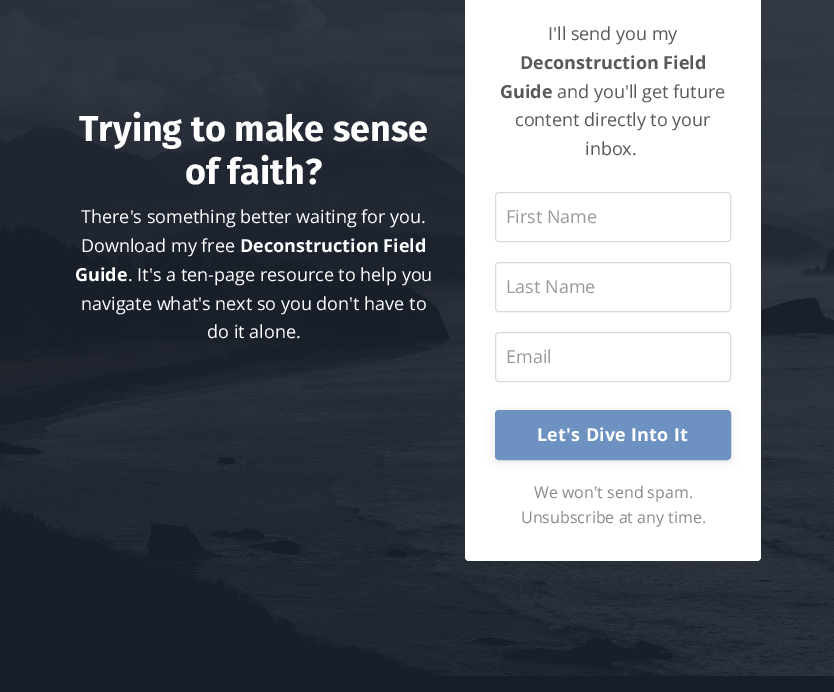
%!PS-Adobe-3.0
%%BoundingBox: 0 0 834 692
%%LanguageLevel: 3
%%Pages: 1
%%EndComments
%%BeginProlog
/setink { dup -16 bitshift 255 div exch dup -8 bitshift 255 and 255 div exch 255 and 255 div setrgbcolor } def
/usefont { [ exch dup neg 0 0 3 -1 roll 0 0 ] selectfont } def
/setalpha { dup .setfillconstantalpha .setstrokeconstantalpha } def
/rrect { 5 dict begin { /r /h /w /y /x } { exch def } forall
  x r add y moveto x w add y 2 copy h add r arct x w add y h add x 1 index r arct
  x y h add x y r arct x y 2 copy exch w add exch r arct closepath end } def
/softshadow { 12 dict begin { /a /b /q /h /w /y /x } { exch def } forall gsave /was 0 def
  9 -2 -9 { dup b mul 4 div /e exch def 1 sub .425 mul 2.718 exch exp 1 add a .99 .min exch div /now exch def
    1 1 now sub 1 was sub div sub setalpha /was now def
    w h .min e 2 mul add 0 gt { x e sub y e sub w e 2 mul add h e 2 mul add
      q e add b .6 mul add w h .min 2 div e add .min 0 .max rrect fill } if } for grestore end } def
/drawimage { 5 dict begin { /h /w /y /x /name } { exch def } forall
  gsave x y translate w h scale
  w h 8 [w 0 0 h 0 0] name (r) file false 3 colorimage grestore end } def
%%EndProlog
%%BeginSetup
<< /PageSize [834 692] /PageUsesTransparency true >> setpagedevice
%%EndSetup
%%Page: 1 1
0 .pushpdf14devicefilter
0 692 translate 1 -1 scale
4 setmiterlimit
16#161E2A setink
0 0 834 692 rectfill
(img1.raw) 0 0 834 676 drawimage
/FiraSans-Bold 36 usefont
16#FFFFFF setink
79 141 moveto (Trying to make sense) show
185 184 moveto (of faith?) show
/OpenSans-Regular 18 usefont
81 223 moveto (There's something better waiting for you.) show
81 252 moveto (Download my free) show
/OpenSans-Bold 18 usefont
240 252 moveto (Deconstruction Field) show
75 281 moveto (Guide) show
/OpenSans-Regular 18 usefont
[
    [(. It's a ten-page resource to help you) 128 281]
    [(navigate what's next so you don't have to) 81 310]
    [(do it alone.) 207 338]
] { aload pop moveto show } forall
465 -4 296 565 4 rrect fill
16#595959 setink
548 40 moveto (I'll send you my) show
/OpenSans-Bold 18 usefont
520 69 moveto (Deconstruction Field) show
500 98 moveto (Guide) show
/OpenSans-Regular 18 usefont
[
    [(and you'll get future) 557 98]
    [(content directly to your) 515 126]
    [(inbox.) 585 155]
] { aload pop moveto show } forall
16#D9D9D9 setink
495.5 192.5 235 49 3.5 rrect stroke
16#999999 setink
506 223 moveto (First Name) show
16#D9D9D9 setink
495.5 262.5 235 49 3.5 rrect stroke
16#999999 setink
506 293 moveto (Last Name) show
16#D9D9D9 setink
495.5 332.5 235 49 3.5 rrect stroke
16#999999 setink
506 363 moveto (Email) show
16#000000 setink
495 412 236 50 4 5 0.1 softshadow
16#6D92C1 setink
496 411 234 48 3 rrect gsave fill grestore
2 setlinewidth
stroke
/OpenSans-Bold 18 usefont
16#FFFFFF setink
537 441 moveto 0.25 0 (Let's Dive Into It) ashow
/OpenSans-Regular 16 usefont
16#888888 setink
534 498 moveto (We won't send spam.) show
521 523 moveto (Unsubscribe at any time.) show
.poppdf14devicefilter showpage
%%EOF
